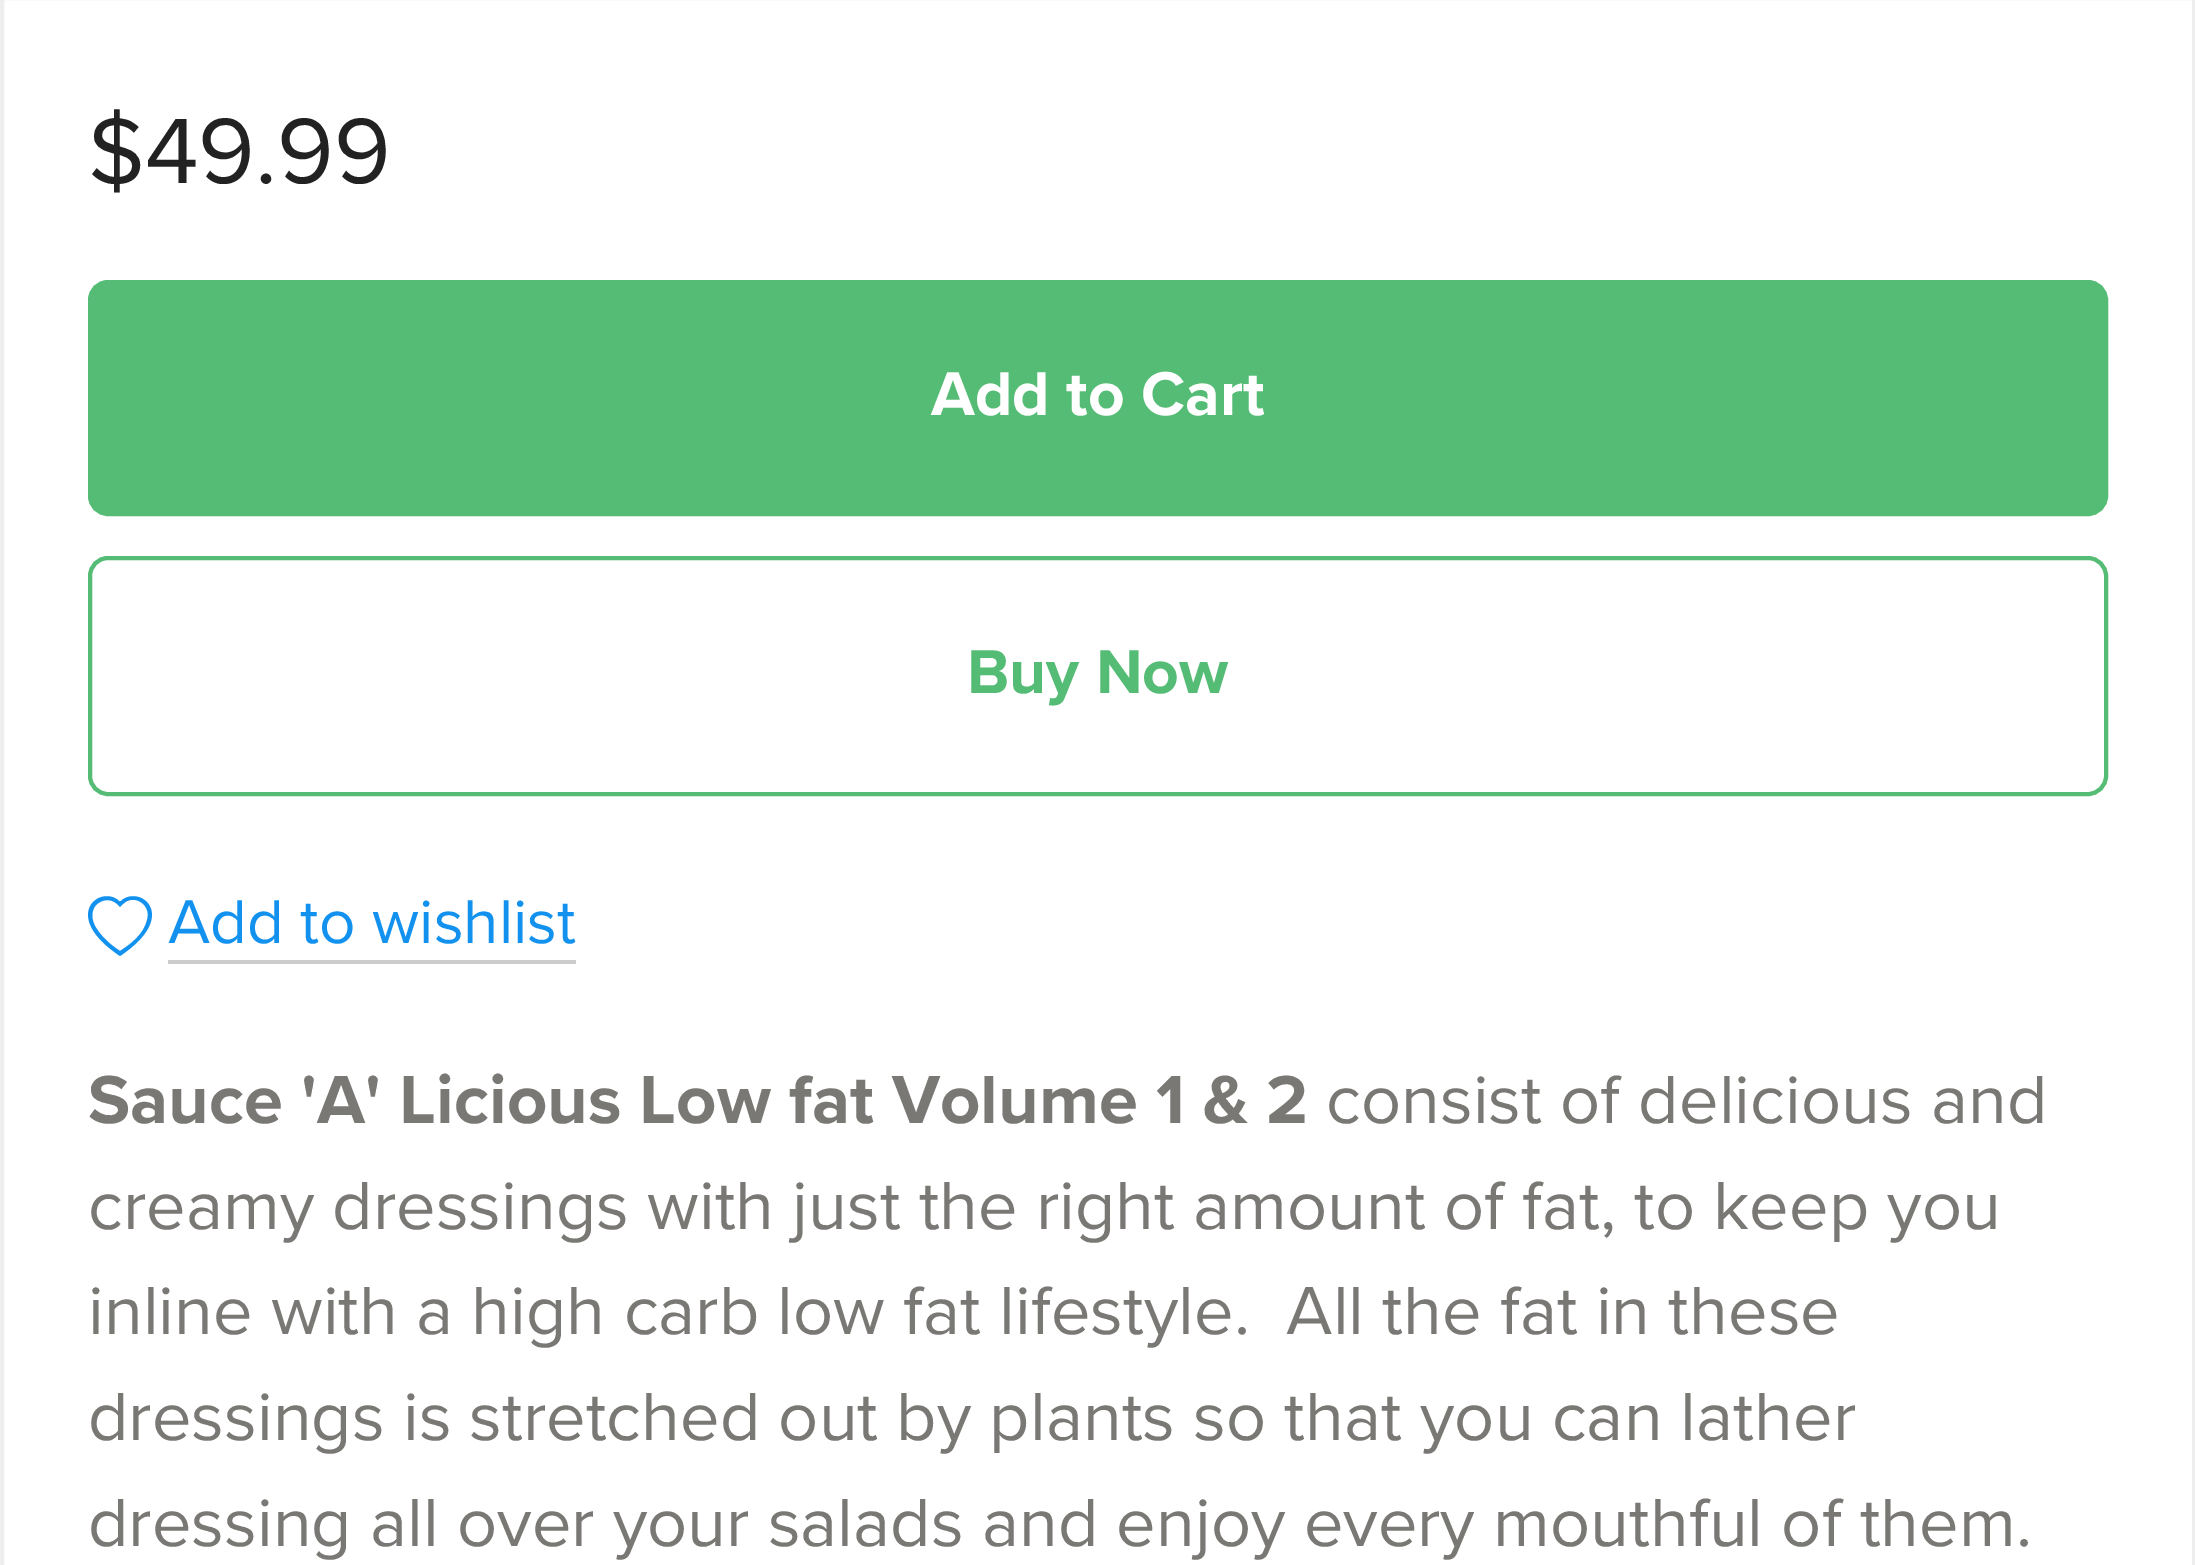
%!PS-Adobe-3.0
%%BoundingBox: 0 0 2195 1565
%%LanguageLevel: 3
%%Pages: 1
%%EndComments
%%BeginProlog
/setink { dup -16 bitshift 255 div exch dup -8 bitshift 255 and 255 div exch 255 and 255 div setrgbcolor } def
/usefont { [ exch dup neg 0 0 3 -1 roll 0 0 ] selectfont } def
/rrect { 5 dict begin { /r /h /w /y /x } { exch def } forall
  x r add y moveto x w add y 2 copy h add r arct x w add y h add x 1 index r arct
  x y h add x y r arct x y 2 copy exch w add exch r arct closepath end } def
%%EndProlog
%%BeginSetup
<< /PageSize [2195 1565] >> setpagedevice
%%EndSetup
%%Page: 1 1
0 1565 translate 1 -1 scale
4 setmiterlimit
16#FFFFFF setink
0 0 2195 1565 rectfill
16#EEEEEE setink
4 setlinewidth
2 -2 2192 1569 rectstroke
/ProximaNova-Regular 96 usefont
16#222222 setink
88 183 moveto ($49.99) show
16#55BC75 setink
90 282 2016 232 18 rrect gsave fill grestore
stroke
/ProximaNova-Bold 64 usefont
16#FFFFFF setink
931 415 moveto (Add to Cart) show
16#55BC75 setink
90 558 2016 236 18 rrect stroke
967 693 moveto (Buy Now) show
/ProximaNova-Regular 64 usefont
16#1292EE setink
168 943 moveto (Add to wishlist) show
16#CCCCCC setink
168 960 408 4 rectfill
16#1292EE setink
120 907 moveto 117 904 lineto 110 897 98 900 94 908 curveto 92 912 91 918 95 926 curveto 99 933 106 942 120 951 curveto 131 944 144 934 147 920 curveto 152 905 134 893 123 904 curveto closepath 120 956 moveto 59 915 101 884 119 901 curveto 120 901 lineto 121 901 lineto 139 884 181 915 120 956 curveto fill
/ProximaNova-Bold 70.4 usefont
16#797875 setink
88 1123 moveto (Sauce 'A' Licious Low fat Volume 1 & 2) show
/ProximaNova-Regular 70.4 usefont
[
    [(consist of delicious and) 1326 1123]
    [(creamy dressings with just the right amount of fat, to keep you) 88 1229]
    [(inline with a high carb low fat lifestyle.  All the fat in these) 88 1334]
    [(dressings is stretched out by plants so that you can lather) 88 1440]
    [(dressing all over your salads and enjoy every mouthful of them.) 88 1546]
] { aload pop moveto show } forall
showpage
%%EOF
